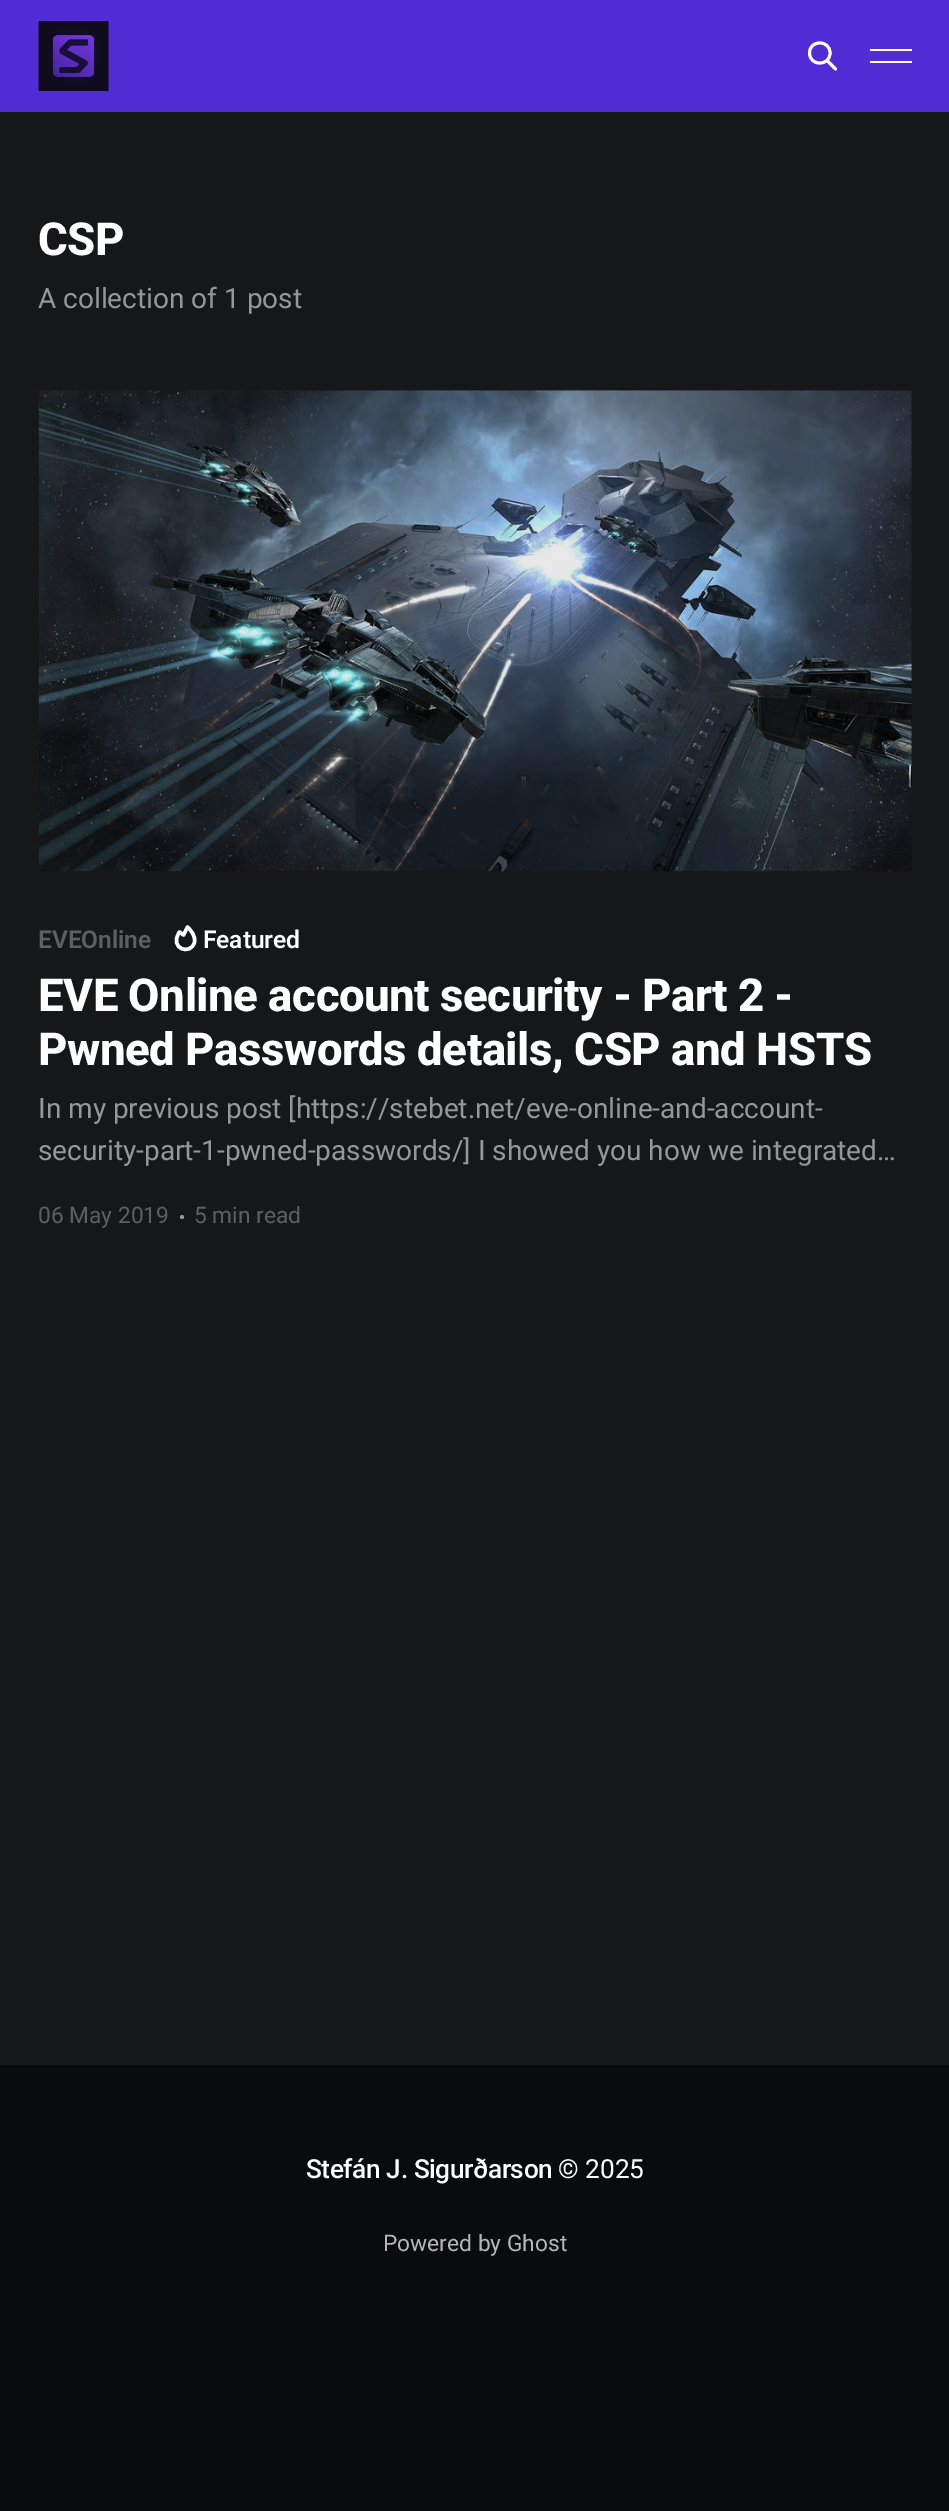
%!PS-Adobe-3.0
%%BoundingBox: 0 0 949 2511
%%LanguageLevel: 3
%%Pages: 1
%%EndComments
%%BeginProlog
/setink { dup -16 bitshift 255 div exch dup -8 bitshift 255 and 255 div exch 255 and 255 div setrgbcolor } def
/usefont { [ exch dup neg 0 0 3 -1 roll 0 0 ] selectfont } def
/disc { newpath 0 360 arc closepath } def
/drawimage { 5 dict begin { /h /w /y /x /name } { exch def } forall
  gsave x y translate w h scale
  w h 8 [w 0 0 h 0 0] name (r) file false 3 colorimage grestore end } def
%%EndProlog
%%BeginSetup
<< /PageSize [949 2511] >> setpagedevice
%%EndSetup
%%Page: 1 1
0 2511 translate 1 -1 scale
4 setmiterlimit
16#151719 setink
0 0 949 2511 rectfill
16#512BD4 setink
0 0 949 112 rectfill
(img1.raw) 38 21 71 70 drawimage
16#FFFFFF setink
2.9 setlinewidth
1 setlinecap
1 setlinejoin
835.5 69 moveto 827 60.5 lineto 830 53 moveto 830 66.5 809.5 66.5 809.5 53 curveto 809.5 39.5 830 39.5 830 53 curveto closepath stroke
870 49 42 2 rectfill
870 61 42 2 rectfill
/Roboto-ExtraBold 45.5 usefont
38 255 moveto -0.45 0 (CSP) ashow
/Roboto-Regular 28 usefont
16#979797 setink
38 308 moveto (A collection of 1 post) show
(img2.raw) 38 390 874 482 drawimage
/Roboto-SemiBold 24.5 usefont
16#5F5F5F setink
38 948 moveto -0.1 0 (EVEOnline) ashow
16#FFFFFF setink
3.5 setlinewidth
179.5 932 moveto 168 949 191.5 956 194.5 942 curveto 195.5 936 191.5 931 187.5 927 curveto 183.5 935 lineto closepath stroke
203 948 moveto -0.1 0 (Featured) ashow
/Roboto-ExtraBold 45.5 usefont
38 1011 moveto -0.45 0 (EVE Online account security - Part 2 -) ashow
38 1065 moveto -0.45 0 (Pwned Passwords details, CSP and HSTS) ashow
/Roboto-Regular 28 usefont
16#979797 setink
38 1118 moveto (In my previous post [https://stebet.net/eve-online-and-account-) show
38 1160 moveto (security-part-1-pwned-passwords/] I showed you how we integrated…) show
/Roboto-Regular 22.75 usefont
16#5F5F5F setink
38 1223 moveto (06 May 2019) show
16#979797 setink
182 1217 2 disc fill
16#5F5F5F setink
194 1223 moveto (5 min read) show
16#0A0B0C setink
0 2065 949 446 rectfill
/Roboto-Medium 26.25 usefont
16#FFFFFF setink
306 2178 moveto -0.4 0 (Stefán J. Sigurðarson) ashow
/Roboto-Regular 26.25 usefont
558 2178 moveto (© 2025) show
/Roboto-Regular 22.75 usefont
16#B6B6B6 setink
383 2251 moveto (Powered by Ghost) show
showpage
%%EOF
